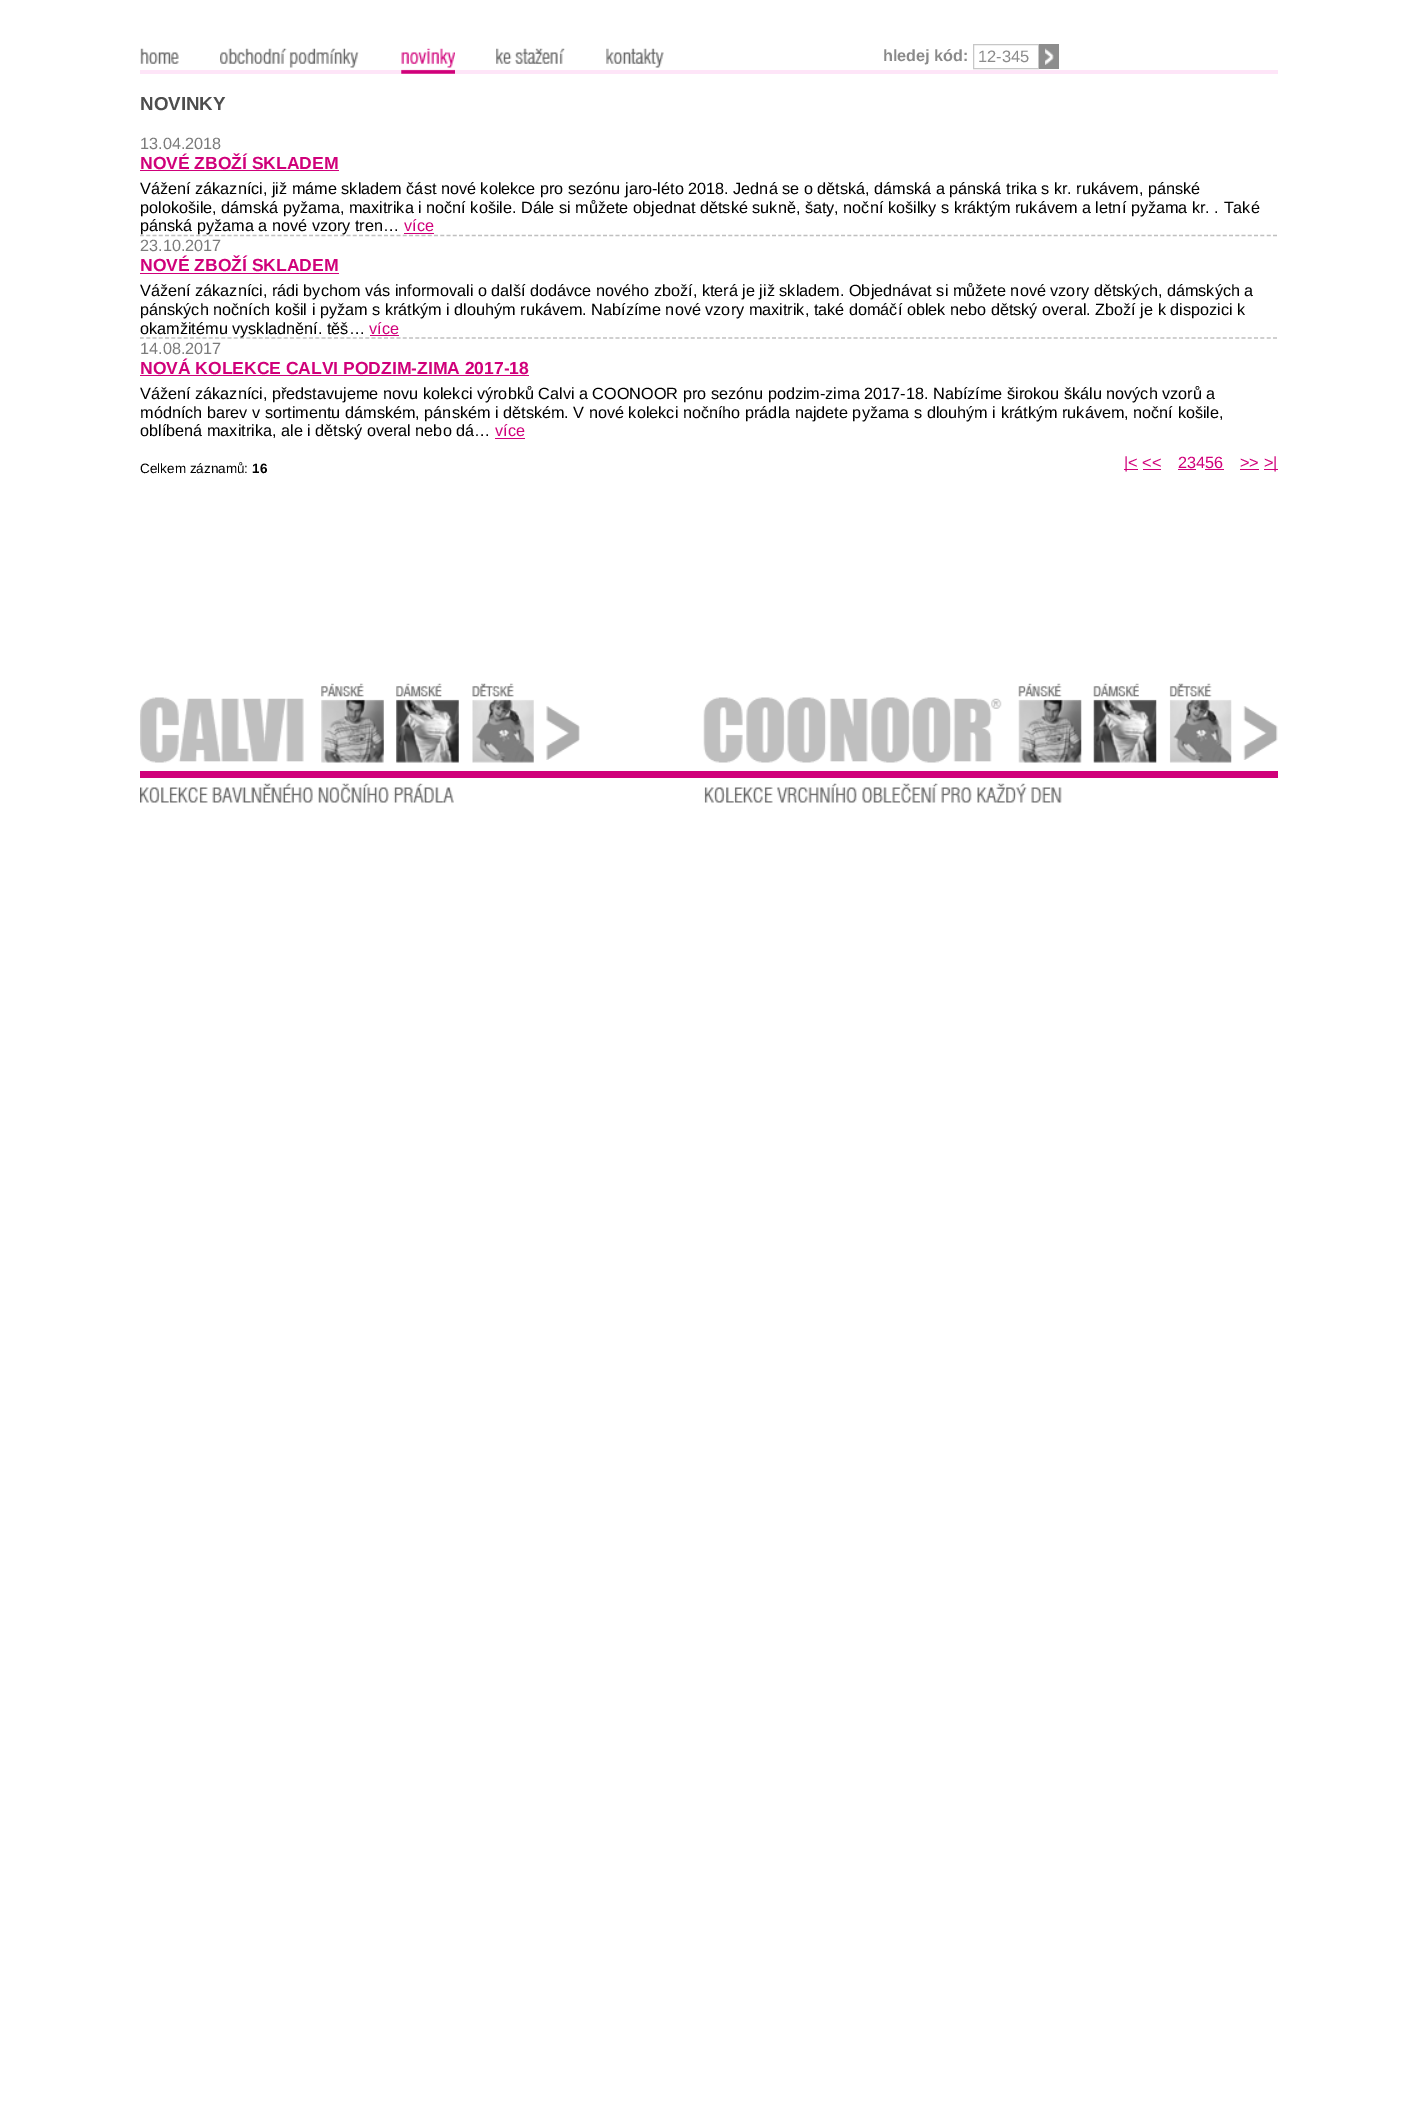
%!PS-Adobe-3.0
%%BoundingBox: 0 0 1417 2125
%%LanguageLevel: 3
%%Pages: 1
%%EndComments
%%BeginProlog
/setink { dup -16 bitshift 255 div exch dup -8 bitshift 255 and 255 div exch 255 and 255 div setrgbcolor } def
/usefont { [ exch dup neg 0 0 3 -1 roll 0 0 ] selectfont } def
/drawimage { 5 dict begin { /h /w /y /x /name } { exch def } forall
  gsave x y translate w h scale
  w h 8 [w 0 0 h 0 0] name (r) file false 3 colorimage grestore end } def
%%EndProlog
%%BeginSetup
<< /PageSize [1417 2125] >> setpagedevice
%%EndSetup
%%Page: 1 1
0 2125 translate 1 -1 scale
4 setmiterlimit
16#FFFFFF setink
0 0 1417 2125 rectfill
16#FEE5F8 setink
140 70 1138 4 rectfill
(img1.raw) 140 48 39 16 drawimage
(img2.raw) 220 48 139 20 drawimage
(img3.raw) 401 48 54 26 drawimage
(img4.raw) 496 48 69 16 drawimage
(img5.raw) 606 48 58 20 drawimage
/LiberationSans-Bold 16.25 usefont
16#8A8A8A setink
883 61 moveto (hledej kód:) show
16#C7C7C7 setink
973.5 44.5 65 24 rectstroke
/LiberationSans-Regular 16.5 usefont
16#8A8A8A setink
978 62 moveto (12-345) show
16#8D8D8D setink
1039 44 20 25 rectfill
(img6.raw) 1045 48 9 17 drawimage
/LiberationSans-Bold 18.75 usefont
16#4D4D4D setink
140 110 moveto (NOVINKY) show
16#C0C0C0 setink
1.2 setlinewidth
[3.75 2.51] 0 setdash
140 235.5 moveto 1277.5 235.5 lineto stroke
/LiberationSans-Regular 16.25 usefont
16#7B7B7B setink
140 149 moveto (13.04.2018) show
/LiberationSans-Bold 17.5 usefont
16#D0007A setink
140 169 moveto (NOVÉ ZBOŽÍ SKLADEM) show
140 170 199 1 rectfill
/LiberationSans-Regular 16.25 usefont
16#000000 setink
[
    [(Vážení zákazníci, již máme skladem část nové kolekce pro sezónu jaro-léto 2018. Jedná se o dětská, dámská a pánská trika s kr. rukávem, pánské) 140 194]
    [(polokošile, dámská pyžama, maxitrika i noční košile. Dále si můžete objednat dětské sukně, šaty, noční košilky s kráktým rukávem a letní pyžama kr. . Také) 140 213]
    [(pánská pyžama a nové vzory tren…) 140 231]
] { aload pop moveto show } forall
16#D0007A setink
404 231 moveto (více) show
404 233 30 1 rectfill
16#C0C0C0 setink
140 338 moveto 1277.5 338 lineto stroke
16#7B7B7B setink
140 251 moveto (23.10.2017) show
/LiberationSans-Bold 17.5 usefont
16#D0007A setink
140 271 moveto (NOVÉ ZBOŽÍ SKLADEM) show
140 273 199 1 rectfill
/LiberationSans-Regular 16.25 usefont
16#000000 setink
[
    [(Vážení zákazníci, rádi bychom vás informovali o další dodávce nového zboží, která je již skladem. Objednávat si můžete nové vzory dětských, dámských a) 140 296]
    [(pánských nočních košil i pyžam s krátkým i dlouhým rukávem. Nabízíme nové vzory maxitrik, také domáčí oblek nebo dětský overal. Zboží je k dispozici k) 140 315]
    [(okamžitému vyskladnění. těš…) 140 334]
] { aload pop moveto show } forall
16#D0007A setink
369 334 moveto (více) show
370 335 29 1 rectfill
16#7B7B7B setink
140 354 moveto (14.08.2017) show
/LiberationSans-Bold 17.5 usefont
16#D0007A setink
140 374 moveto (NOVÁ KOLEKCE CALVI PODZIM-ZIMA 2017-18) show
140 375 389 1 rectfill
/LiberationSans-Regular 16.25 usefont
16#000000 setink
[
    [(Vážení zákazníci, představujeme novu kolekci výrobků Calvi a COONOOR pro sezónu podzim-zima 2017-18. Nabízíme širokou škálu nových vzorů a) 140 399]
    [(módních barev v sortimentu dámském, pánském i dětském. V nové kolekci nočního prádla najdete pyžama s dlouhým i krátkým rukávem, noční košile,) 140 418]
    [(oblíbená maxitrika, ale i dětský overal nebo dá…) 140 436]
] { aload pop moveto show } forall
16#D0007A setink
495 436 moveto (více) show
495 438 30 1 rectfill
/LiberationSans-Regular 13.5 usefont
16#000000 setink
140 473 moveto (Celkem záznamů:) show
/LiberationSans-Bold 13.5 usefont
252 473 moveto (16) show
16#D0007A setink
1124 469 14 1 rectfill
/LiberationSans-Regular 16.25 usefont
1124 468 moveto (|< <<) show
1143 469 18 1 rectfill
1178 468 moveto (23456) show
1178 469 18 1 rectfill
1205 469 19 1 rectfill
1240 468 moveto (>>) show
1240 469 19 1 rectfill
1264 469 14 1 rectfill
1264 468 moveto (>|) show
140 771 1138 7 rectfill
(img7.raw) 140 783 922 20 drawimage
(img8.raw) 546 706 34 54 drawimage
(img9.raw) 140 697 164 66 drawimage
(img10.raw) 321 683 63 80 drawimage
(img11.raw) 396 683 63 80 drawimage
(img12.raw) 472 683 62 80 drawimage
(img13.raw) 1243 706 35 54 drawimage
(img14.raw) 703 697 299 66 drawimage
(img15.raw) 1018 683 64 80 drawimage
(img16.raw) 1093 683 64 80 drawimage
(img17.raw) 1169 683 63 80 drawimage
showpage
%%EOF
